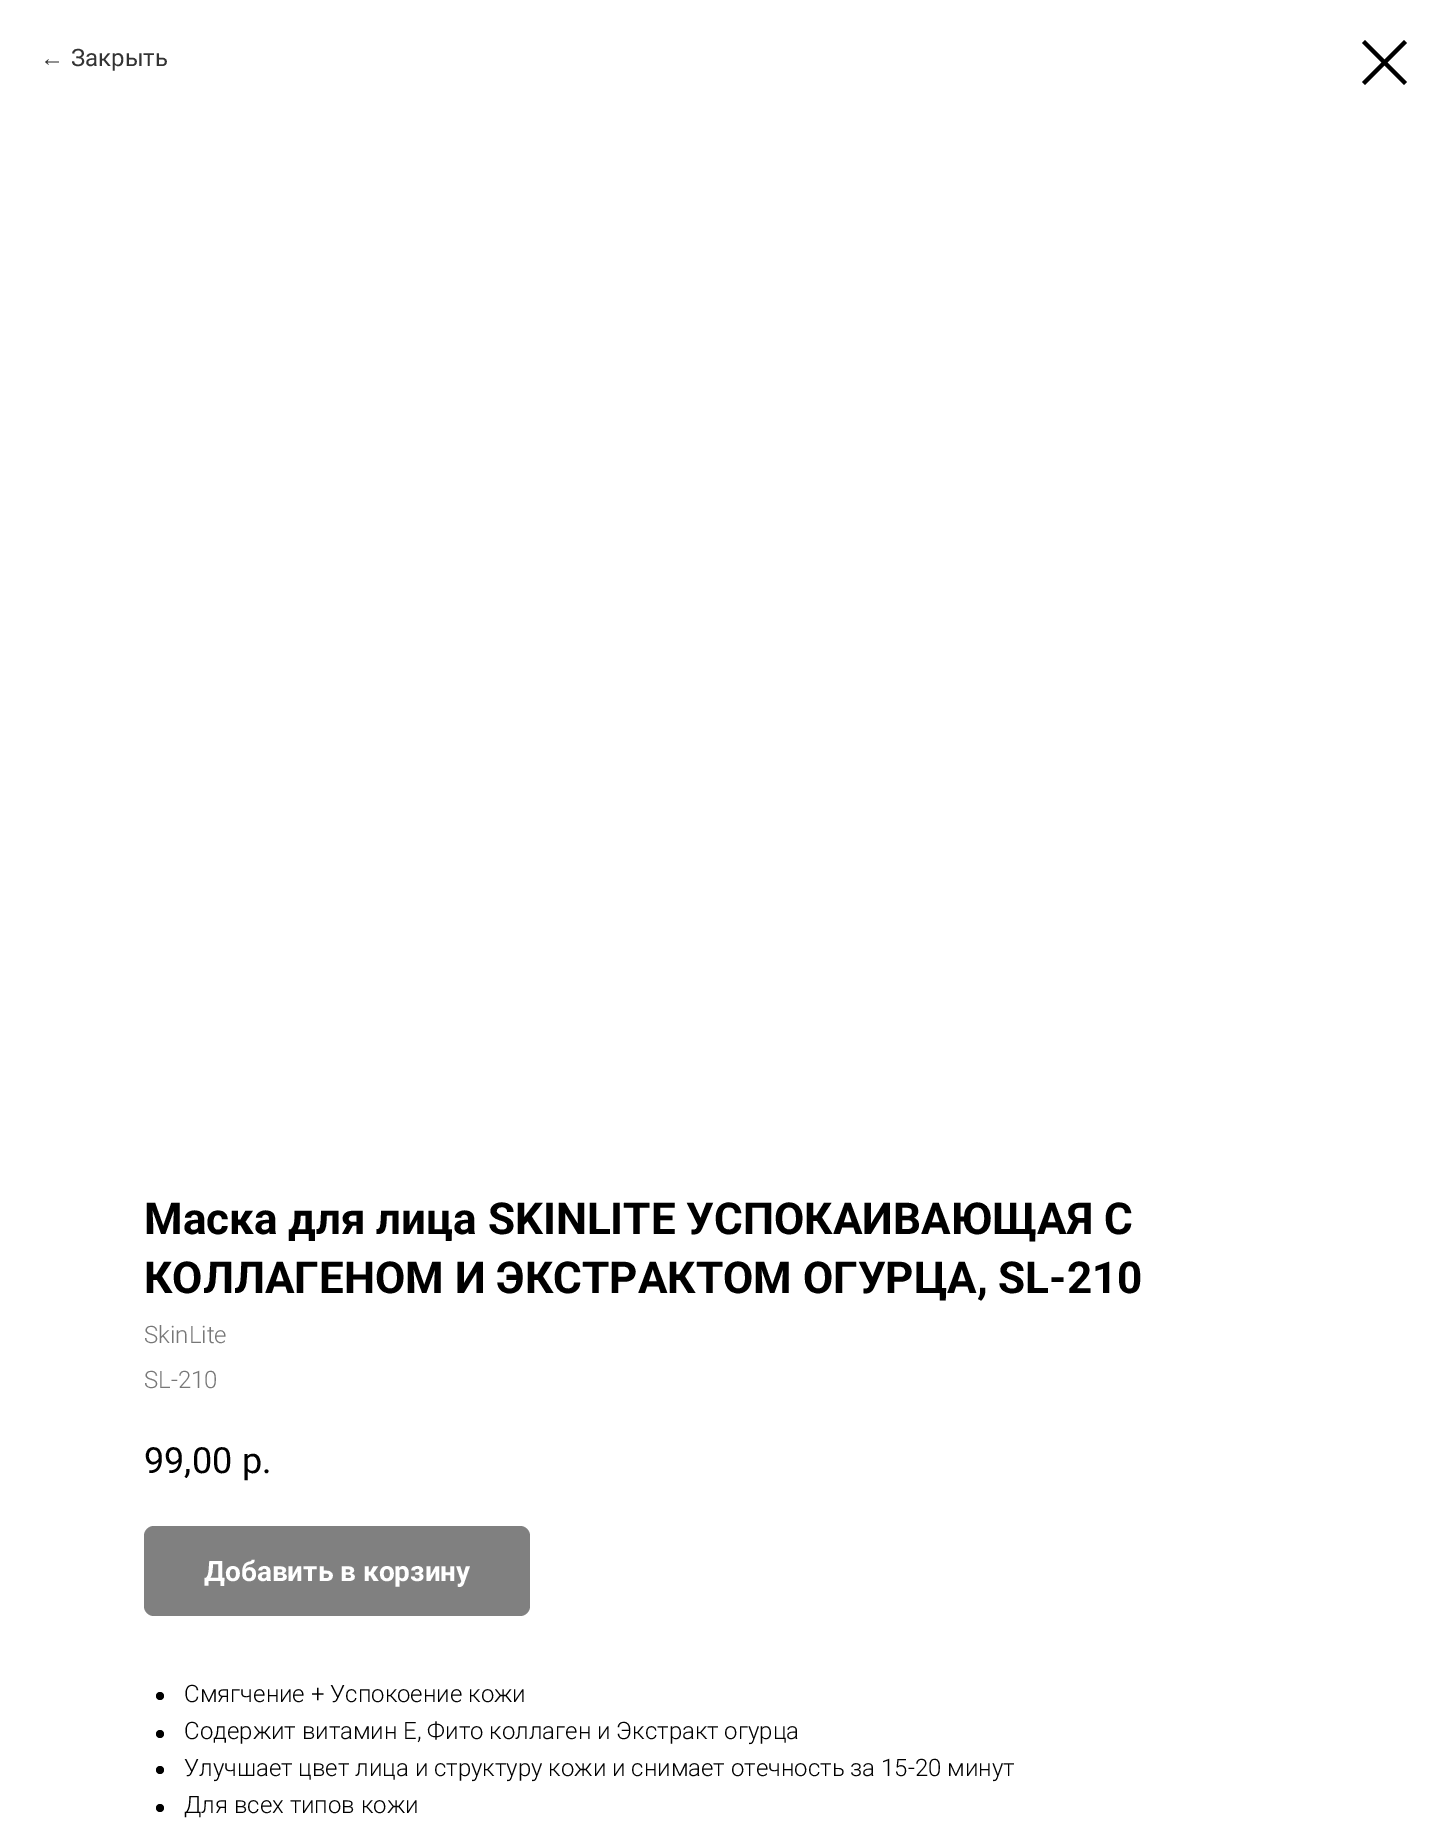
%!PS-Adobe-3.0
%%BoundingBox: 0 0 1447 1828
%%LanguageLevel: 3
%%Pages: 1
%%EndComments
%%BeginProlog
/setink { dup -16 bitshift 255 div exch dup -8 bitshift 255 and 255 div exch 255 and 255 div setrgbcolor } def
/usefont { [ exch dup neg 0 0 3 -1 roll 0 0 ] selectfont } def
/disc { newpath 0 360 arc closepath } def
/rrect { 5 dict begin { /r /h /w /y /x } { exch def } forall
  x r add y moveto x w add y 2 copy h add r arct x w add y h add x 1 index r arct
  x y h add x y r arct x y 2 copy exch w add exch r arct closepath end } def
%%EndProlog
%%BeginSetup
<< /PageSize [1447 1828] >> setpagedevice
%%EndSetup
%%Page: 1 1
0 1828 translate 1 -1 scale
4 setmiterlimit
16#FFFFFF setink
0 0 1447 1828 rectfill
/LiberationSans-Regular 24 usefont
16#333333 setink
40 66 moveto (←) show
/Roboto-Regular 24 usefont
71 66 moveto (Закрыть) show
16#000000 setink
1362 43 moveto 1365 40 lineto 1407 82 lineto 1404 85 lineto closepath eofill
1404 40 moveto 1407 43 lineto 1365 85 lineto 1362 82 lineto closepath eofill
/Roboto-Bold 44 usefont
144 1234 moveto (Маска для лица SKINLITE УСПОКАИВАЮЩАЯ С) show
144 1293 moveto (КОЛЛАГЕНОМ И ЭКСТРАКТОМ ОГУРЦА, SL-210) show
/Roboto-Light 24 usefont
16#777777 setink
144 1343 moveto (SkinLite) show
144 1388 moveto (SL-210) show
/Roboto-Regular 36 usefont
16#000000 setink
144 1473 moveto (99,00) show
242 1473 moveto (р.) show
16#808080 setink
144 1526 386 90 10 rrect fill
/Roboto-Bold 28 usefont
16#FFFFFF setink
204 1581 moveto (Добавить в корзину) show
16#000000 setink
160 1696 4 disc fill
/Roboto-Light 24 usefont
184 1702 moveto (Смягчение + Успокоение кожи) show
160 1734 4 disc fill
184 1739 moveto (Содержит витамин Е, Фито коллаген и Экстракт огурца) show
160 1770 4 disc fill
184 1776 moveto (Улучшает цвет лица и структуру кожи и снимает отечность за 15-20 минут) show
160 1808 4 disc fill
184 1813 moveto (Для всех типов кожи) show
showpage
%%EOF
